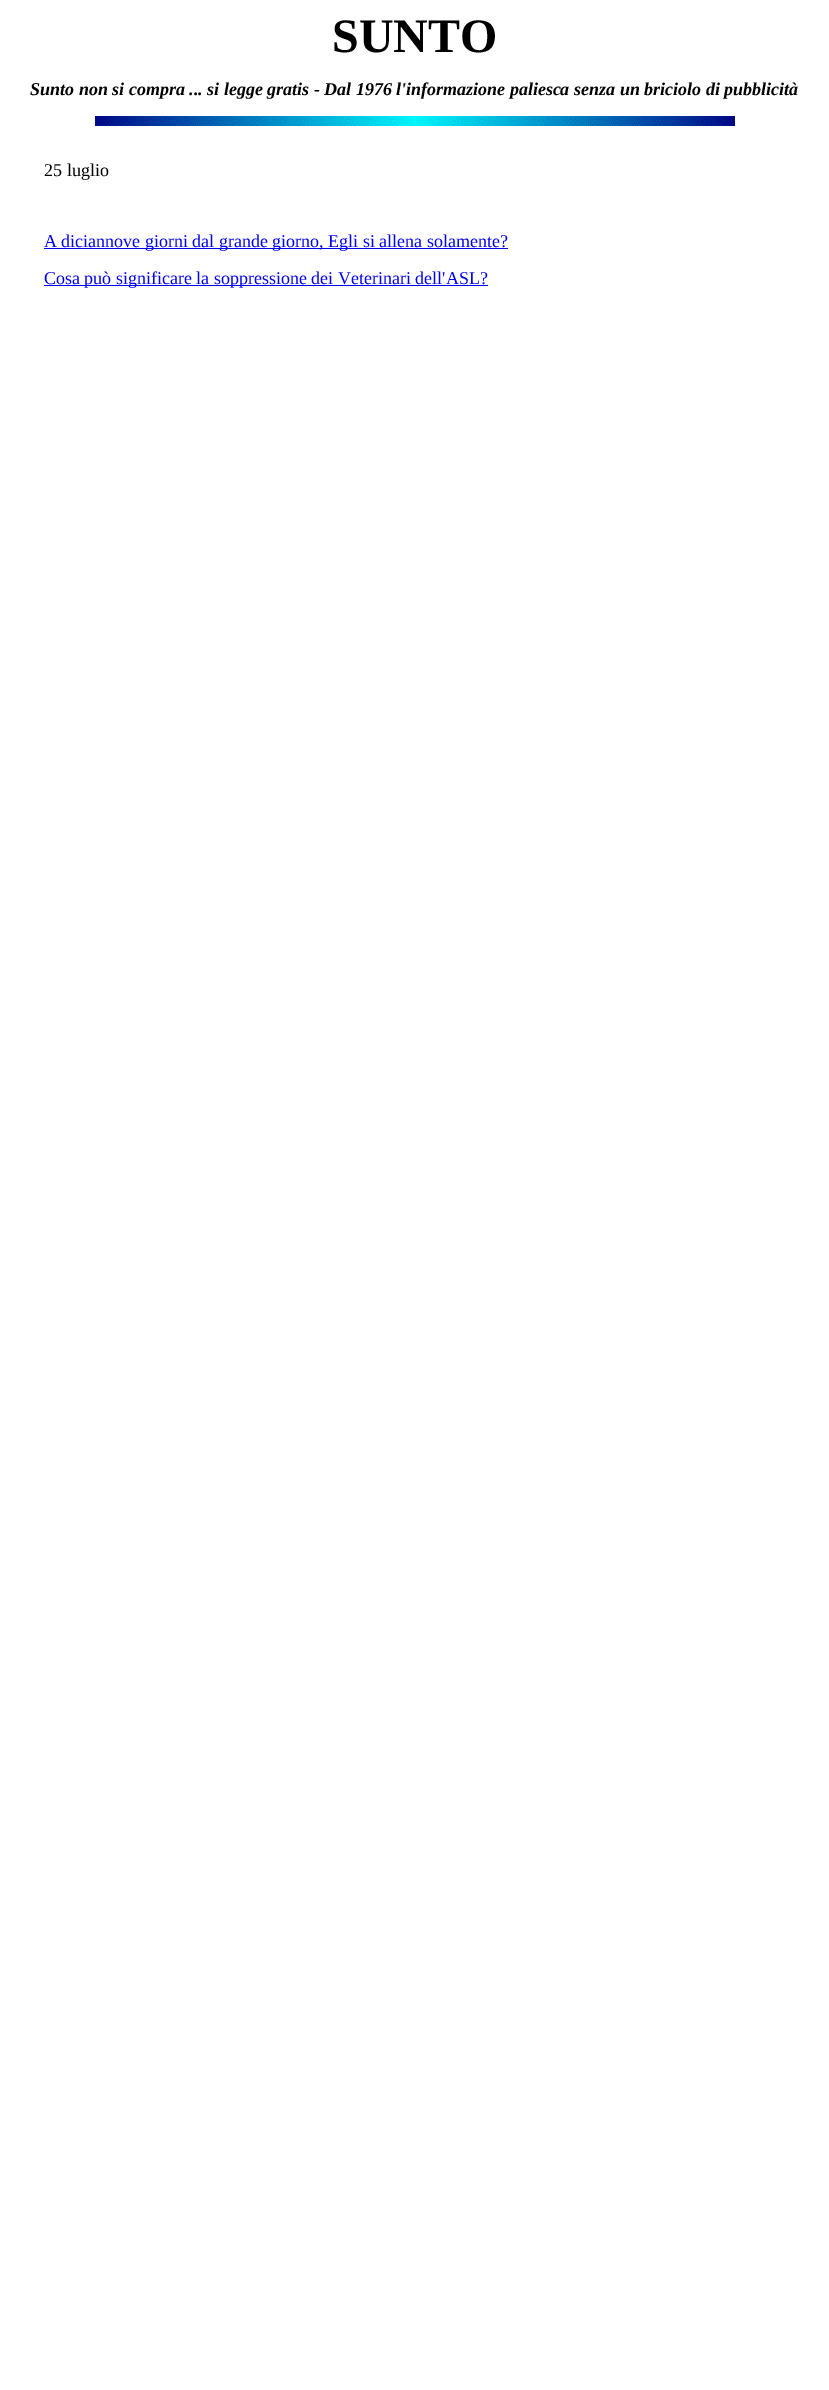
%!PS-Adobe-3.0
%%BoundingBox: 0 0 829 2390
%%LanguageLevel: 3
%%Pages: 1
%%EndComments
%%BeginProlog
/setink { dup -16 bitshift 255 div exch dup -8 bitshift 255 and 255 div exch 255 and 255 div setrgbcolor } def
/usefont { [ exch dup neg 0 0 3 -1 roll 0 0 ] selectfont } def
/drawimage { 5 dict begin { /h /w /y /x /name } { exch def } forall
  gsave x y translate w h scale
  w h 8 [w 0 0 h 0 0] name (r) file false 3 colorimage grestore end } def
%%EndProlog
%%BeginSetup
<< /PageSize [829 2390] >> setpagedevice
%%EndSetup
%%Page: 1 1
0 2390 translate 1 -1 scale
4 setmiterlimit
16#FFFFFF setink
0 0 829 2390 rectfill
/LiberationSerif-Bold 48 usefont
16#000000 setink
332 52 moveto (SUNTO) show
/LiberationSerif-BoldItalic 18 usefont
30 95 moveto (Sunto non si compra ... si legge gratis - Dal 1976 l'informazione paliesca senza un briciolo di pubblicità) show
(img1.raw) 95 116 640 10 drawimage
/LiberationSerif-Regular 18 usefont
44 176 moveto (25 luglio) show
16#0000EE setink
44 248 464 1 rectfill
44 247 moveto (A diciannove giorni dal grande giorno, Egli si allena solamente?) show
44 285 444 1 rectfill
44 284 moveto (Cosa può significare la soppressione dei Veterinari dell'ASL?) show
showpage
%%EOF
